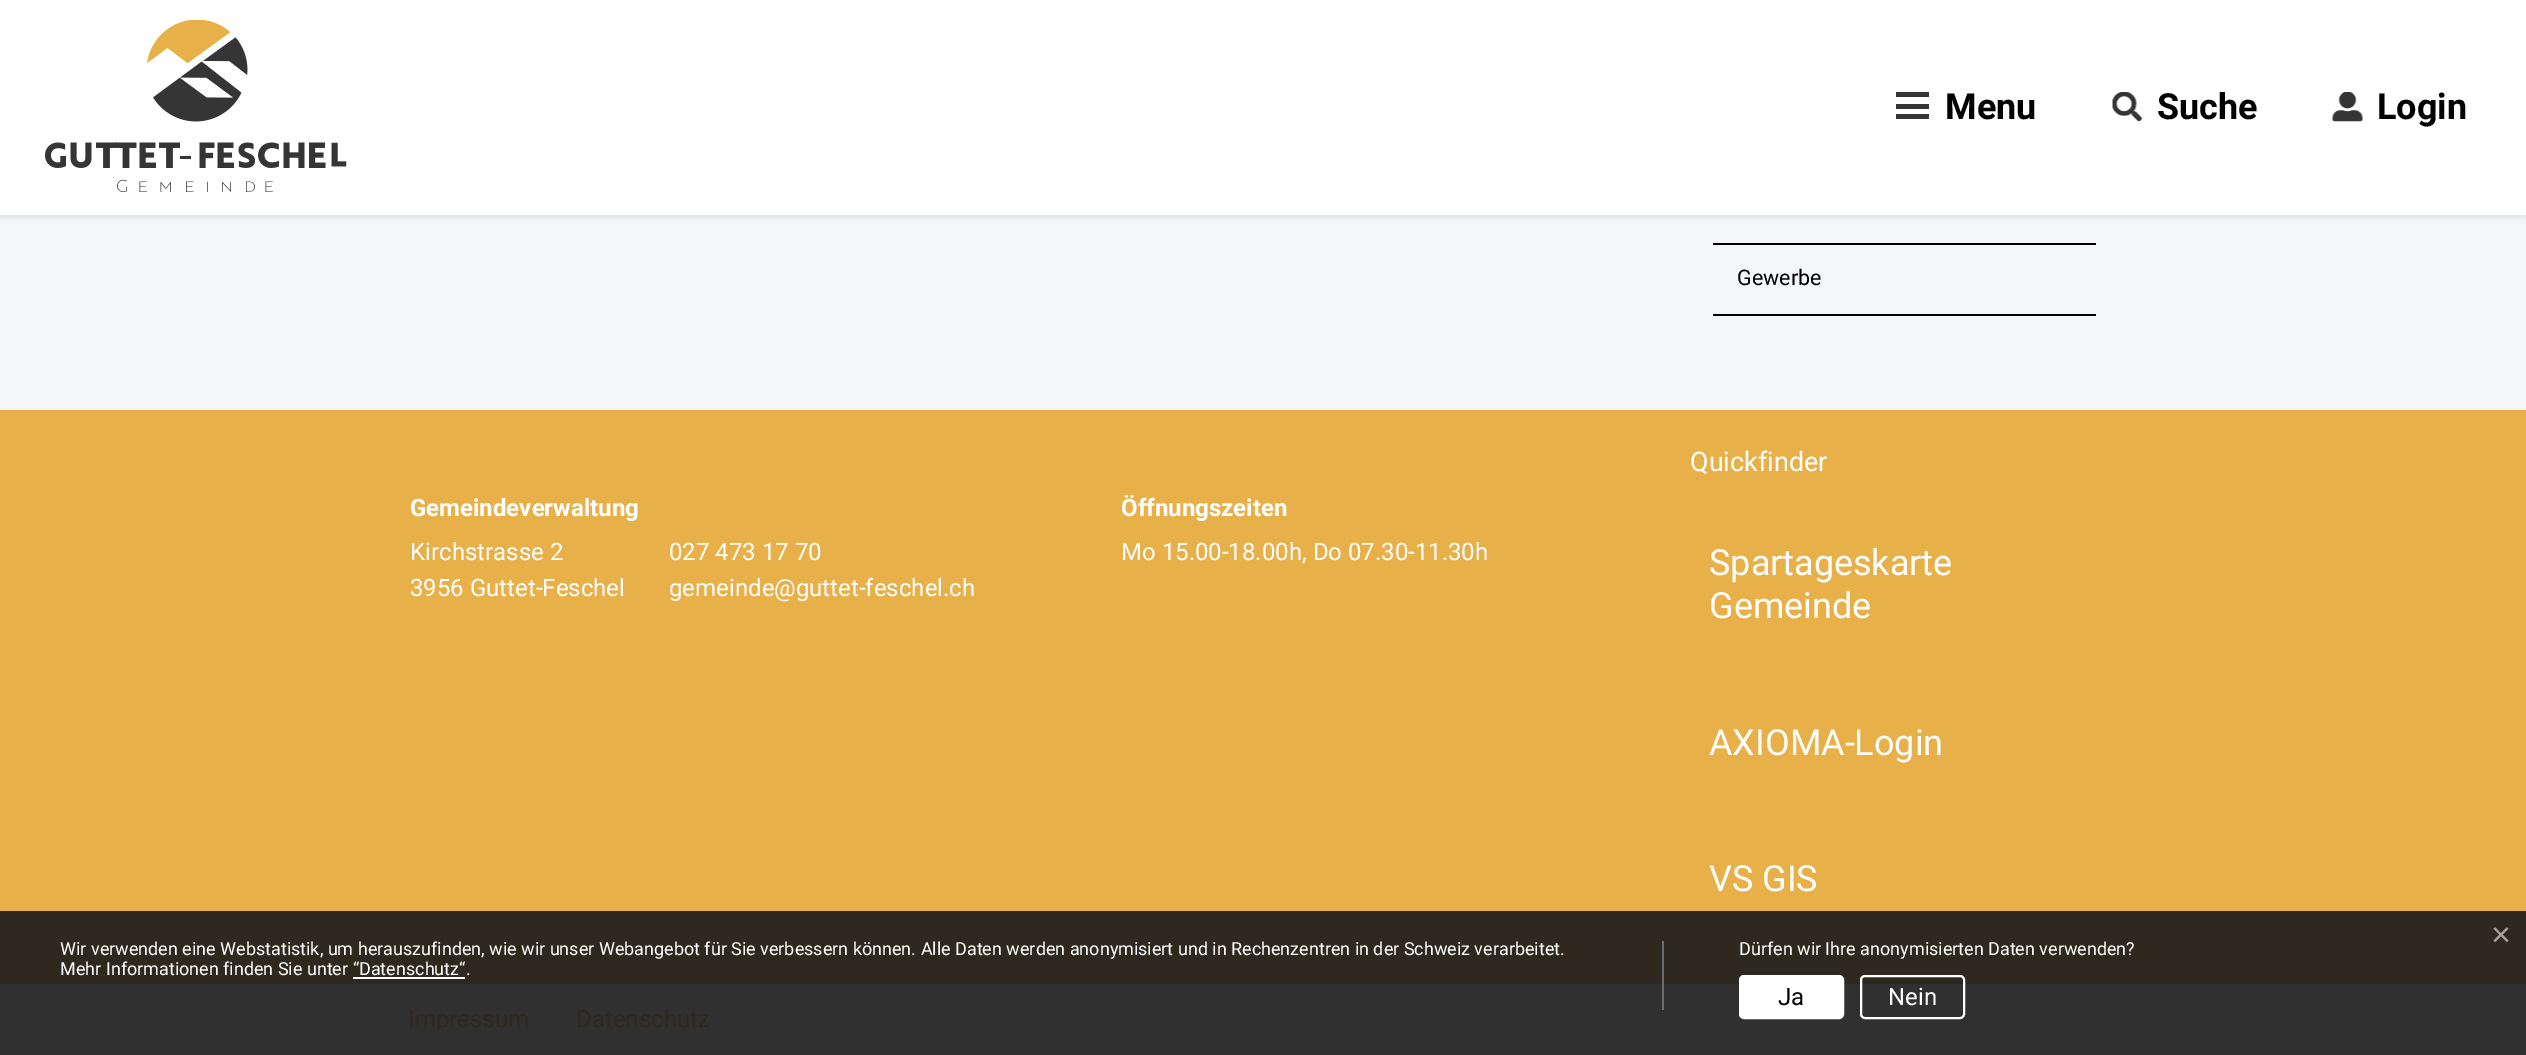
%!PS-Adobe-3.0
%%BoundingBox: 0 0 2526 1055
%%LanguageLevel: 3
%%Pages: 1
%%EndComments
%%BeginProlog
/setink { dup -16 bitshift 255 div exch dup -8 bitshift 255 and 255 div exch 255 and 255 div setrgbcolor } def
/usefont { [ exch dup neg 0 0 3 -1 roll 0 0 ] selectfont } def
/setalpha { dup .setfillconstantalpha .setstrokeconstantalpha } def
/rrect { 5 dict begin { /r /h /w /y /x } { exch def } forall
  x r add y moveto x w add y 2 copy h add r arct x w add y h add x 1 index r arct
  x y h add x y r arct x y 2 copy exch w add exch r arct closepath end } def
/softshadow { 12 dict begin { /a /b /q /h /w /y /x } { exch def } forall gsave /was 0 def
  9 -2 -9 { dup b mul 4 div /e exch def 1 sub .425 mul 2.718 exch exp 1 add a .99 .min exch div /now exch def
    1 1 now sub 1 was sub div sub setalpha /was now def
    w h .min e 2 mul add 0 gt { x e sub y e sub w e 2 mul add h e 2 mul add
      q e add b .6 mul add w h .min 2 div e add .min 0 .max rrect fill } if } for grestore end } def
/drawimage { 5 dict begin { /h /w /y /x /name } { exch def } forall
  gsave x y translate w h scale
  w h 8 [w 0 0 h 0 0] name (r) file false 3 colorimage grestore end } def
%%EndProlog
%%BeginSetup
<< /PageSize [2526 1055] /PageUsesTransparency true >> setpagedevice
%%EndSetup
%%Page: 1 1
0 .pushpdf14devicefilter
0 1055 translate 1 -1 scale
4 setmiterlimit
16#F5F6FA setink
0 0 2526 1055 rectfill
16#000000 setink
0 3 2526 215 0 3 0.07 softshadow
16#FFFFFF setink
0 0 2526 215 rectfill
(img1.raw) 45 20 302 172 drawimage
[
    [1896 92 33 5 16#343534]
    [1896 104 33 5 16#343534]
    [1896 114 33 5 16#343534]
] { aload pop setink rectfill } forall
/Roboto-Bold 36 usefont
16#000000 setink
1945 119 moveto (Menu) show
(img2.raw) 2112 92 31 30 drawimage
2157 119 moveto (Suche) show
(img3.raw) 2332 92 31 30 drawimage
2377 119 moveto (Login) show
1713 243 383 2 rectfill
1713 314 383 2 rectfill
/Roboto-Regular 21.5 usefont
1737 285 moveto (Gewerbe) show
16#E8B049 setink
0 410 2526 501 rectfill
16#2E281E setink
0 911 2526 73 rectfill
/Roboto-Bold 24 usefont
16#FFFFFF setink
410 516 moveto (Gemeindeverwaltung) show
/Roboto-Regular 24 usefont
[
    [(Kirchstrasse 2) 410 560]
    [(3956 Guttet-Feschel) 410 596]
    [(027 473 17 70) 669 560]
    [(gemeinde@guttet-feschel.ch) 669 596]
] { aload pop moveto show } forall
/Roboto-Bold 24 usefont
1121 516 moveto (Öffnungszeiten) show
/Roboto-Regular 24 usefont
1121 560 moveto (Mo 15.00-18.00h, Do 07.30-11.30h) show
/Roboto-Regular 27 usefont
1690 471 moveto (Quickfinder) show
/Roboto-Regular 36 usefont
[
    [(Spartageskarte) 1709 575]
    [(Gemeinde) 1709 618]
    [(AXIOMA-Login) 1709 755]
    [(VS GIS) 1709 891]
] { aload pop moveto show } forall
16#303030 setink
0 984 2526 71 rectfill
/Roboto-Regular 24 usefont
16#2E281E setink
408 1027 moveto (Impressum) show
576 1027 moveto (Datenschutz) show
/LiberationSans-Regular 34 usefont
16#A2A2A2 setink
2491 946 moveto (×) show
16#6D6D6D setink
1662 941 2 69 rectfill
/Roboto-Regular 18 usefont
16#FFFFFF setink
60 955 moveto (Wir verwenden eine Webstatistik, um herauszufinden, wie wir unser Webangebot für Sie verbessern können. Alle Daten werden anonymisiert und in Rechenzentren in der Schweiz verarbeitet.) show
60 975 moveto (Mehr Informationen finden Sie unter “Datenschutz“.) show
353 977 112 2 rectfill
1739 955 moveto (Dürfen wir Ihre anonymisierten Daten verwenden?) show
1740 976 103 42 4 rrect gsave fill grestore
2 setlinewidth
stroke
/Roboto-Regular 24 usefont
16#000000 setink
1778 1005 moveto (Ja) show
16#FFFFFF setink
1861 976 103 42 4 rrect stroke
1888 1005 moveto (Nein) show
.poppdf14devicefilter showpage
%%EOF
